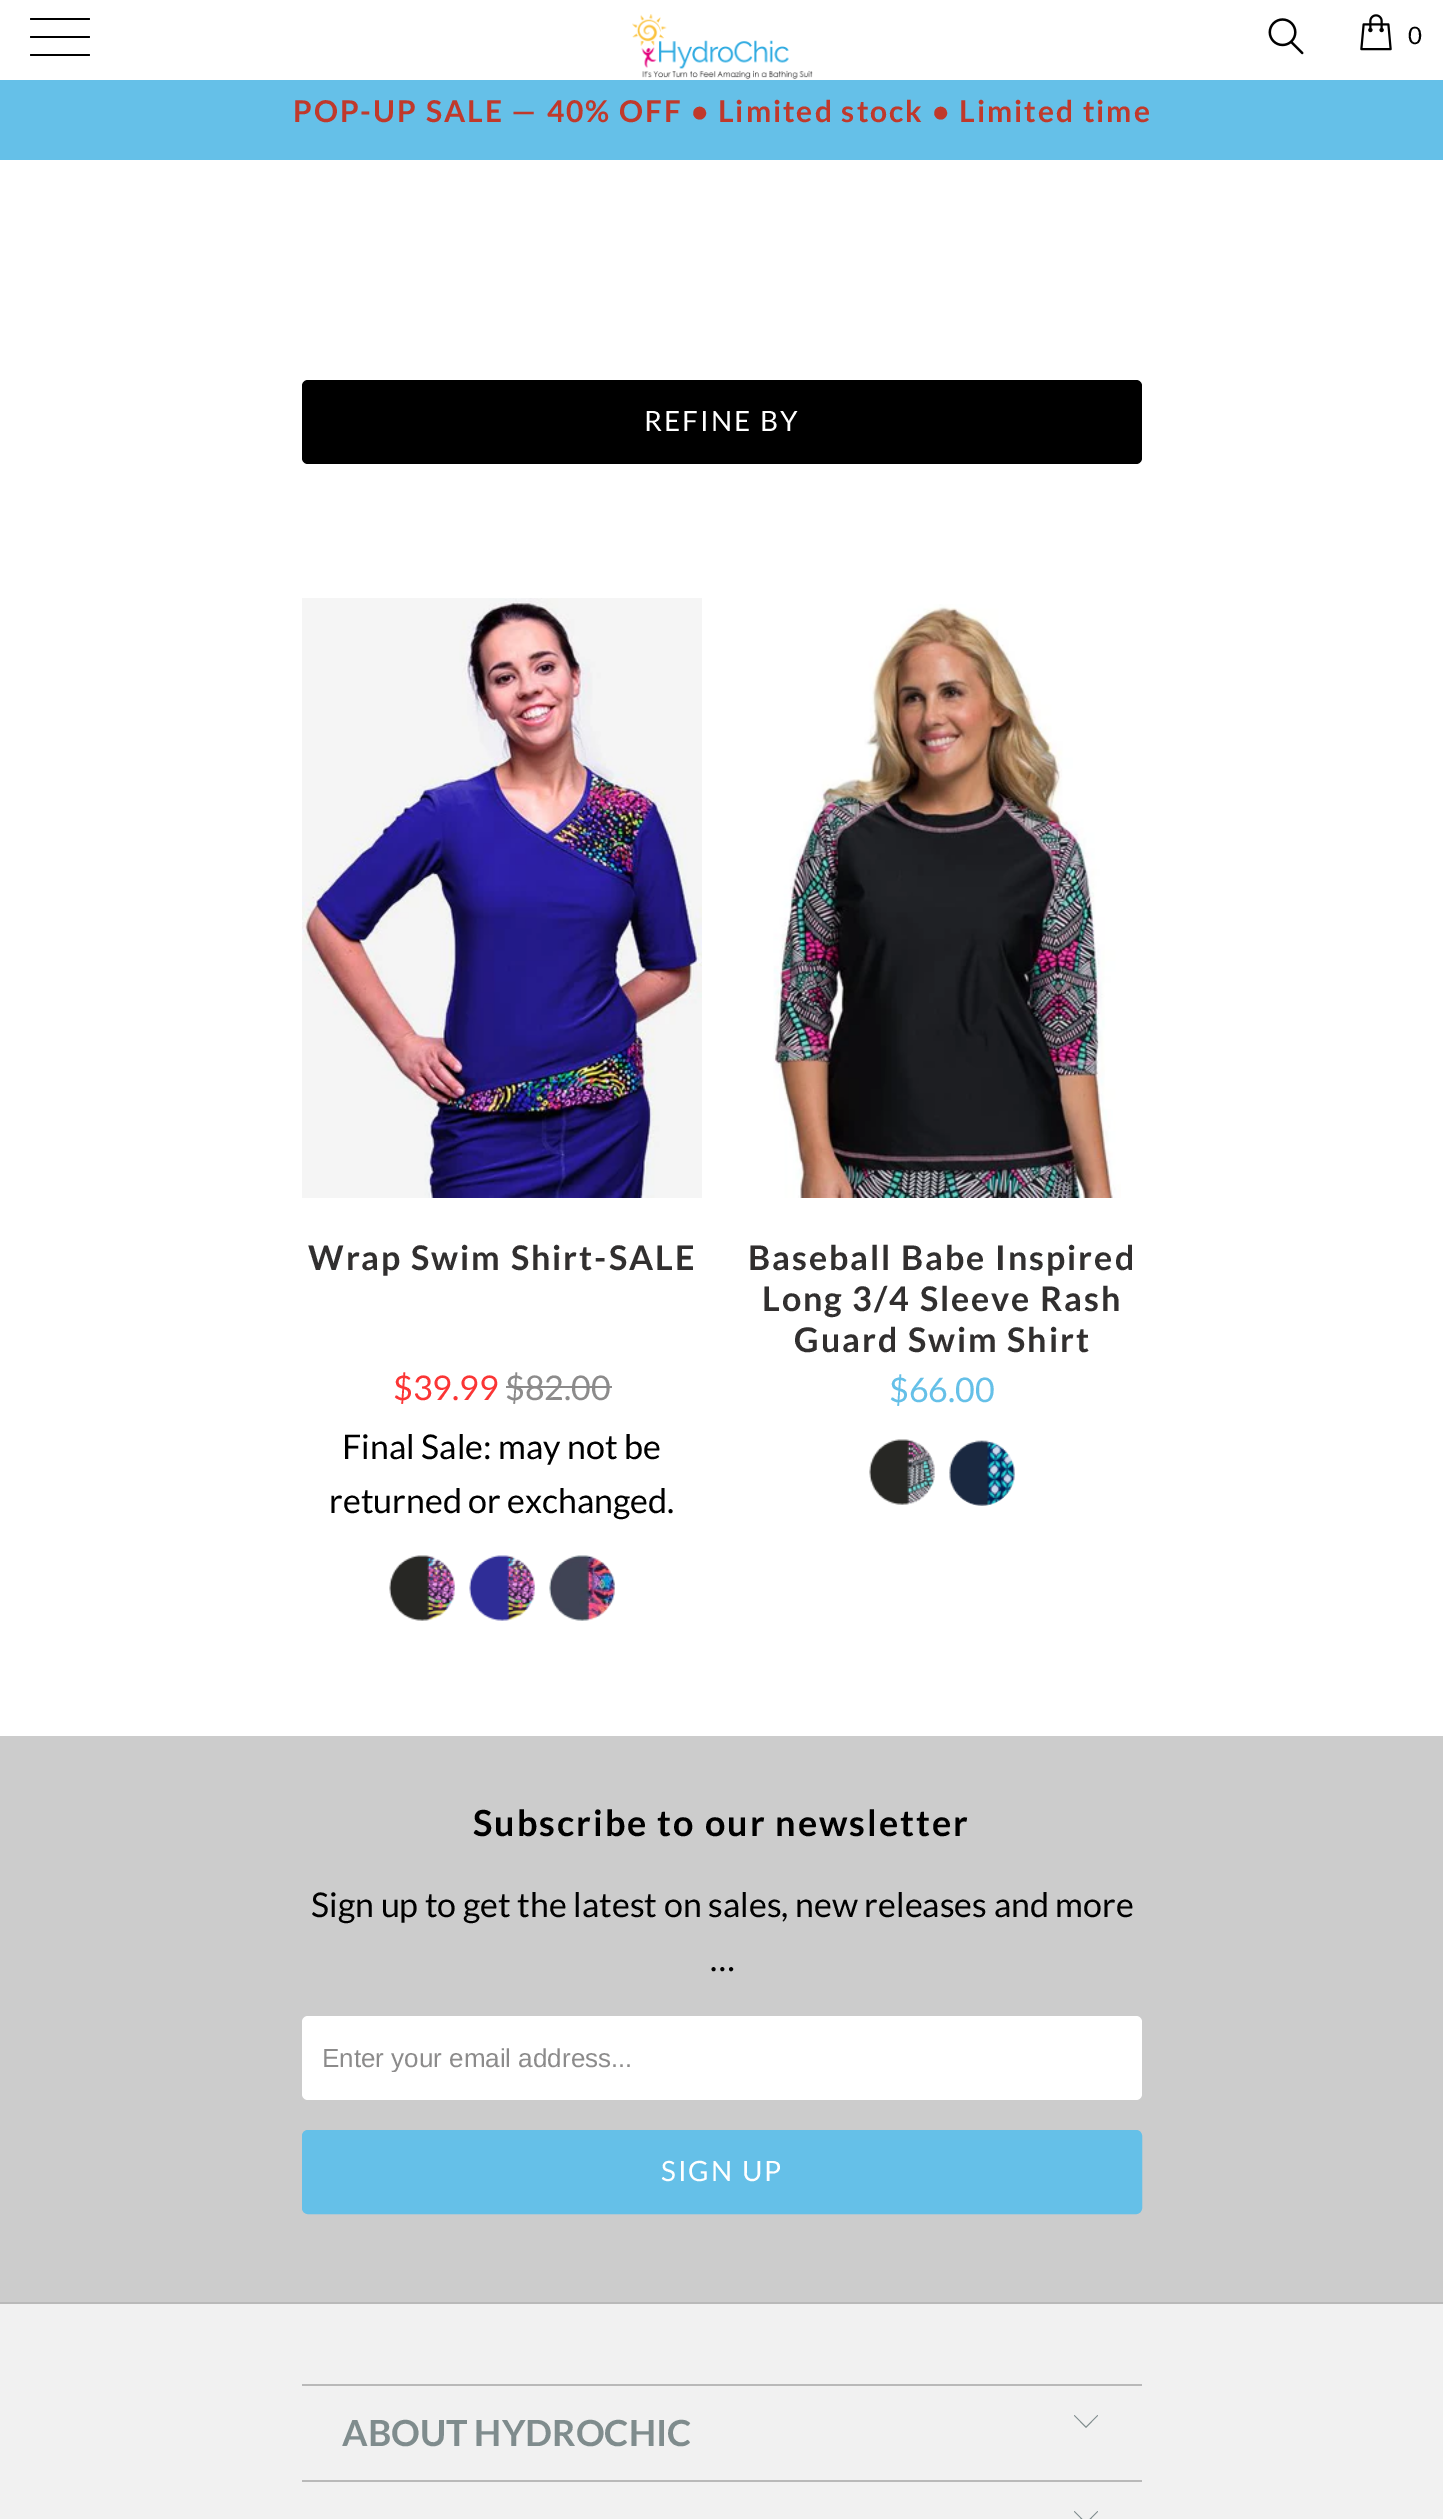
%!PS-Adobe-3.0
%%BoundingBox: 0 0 1443 2519
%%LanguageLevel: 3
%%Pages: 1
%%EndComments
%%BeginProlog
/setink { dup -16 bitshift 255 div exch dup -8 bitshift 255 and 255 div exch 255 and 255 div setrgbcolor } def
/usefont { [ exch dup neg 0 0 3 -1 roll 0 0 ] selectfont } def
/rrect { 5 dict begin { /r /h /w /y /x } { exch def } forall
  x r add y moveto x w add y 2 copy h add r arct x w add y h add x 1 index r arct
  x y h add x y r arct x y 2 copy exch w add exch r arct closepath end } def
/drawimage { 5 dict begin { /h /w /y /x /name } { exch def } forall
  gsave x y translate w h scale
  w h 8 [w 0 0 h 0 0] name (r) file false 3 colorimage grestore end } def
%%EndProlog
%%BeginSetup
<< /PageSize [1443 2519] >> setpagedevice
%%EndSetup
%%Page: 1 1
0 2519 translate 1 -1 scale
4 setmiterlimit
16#FFFFFF setink
0 0 1443 2519 rectfill
16#000000 setink
30 18 60 2 1 rrect fill
30 36 60 2 1 rrect fill
30 54 60 2 1 rrect fill
(img1.raw) 632 14 181 66 drawimage
(img2.raw) 1268 18 36 37 drawimage
(img3.raw) 1360 14 32 37 drawimage
/Lato-Regular 24 usefont
1408 44 moveto 2 0 (0) ashow
16#65C0E8 setink
0 80 1443 80 rectfill
/Lato-Bold 30 usefont
16#C0392B setink
293 122 moveto 2 0 (POP-UP SALE — 40% OFF • Limited stock • Limited time) ashow
16#000000 setink
302 380 840 84 6 rrect fill
/Lato-Regular 28 usefont
16#FFFFFF setink
644 431 moveto 2 0 (REFINE BY) ashow
(img4.raw) 302 598 400 600 drawimage
/Lato-Bold 34 usefont
16#312F2F setink
308 1270 moveto 2 0 (Wrap Swim Shirt-SALE) ashow
/Lato-Regular 34 usefont
16#FB3535 setink
393 1400 moveto ($39.99) show
16#8C8B8B setink
505 1400 moveto ($82.00) show
506 1386 106 2 rectfill
16#000000 setink
342 1459 moveto (Final Sale: may not be) show
329 1513 moveto (returned or exchanged.) show
(img5.raw) 389 1555 66 66 drawimage
(img6.raw) 469 1555 66 66 drawimage
(img7.raw) 549 1555 66 66 drawimage
(img8.raw) 773 604 348 594 drawimage
/Lato-Bold 34 usefont
16#312F2F setink
748 1270 moveto 2 0 (Baseball Babe Inspired) ashow
762 1311 moveto 2 0 (Long 3/4 Sleeve Rash) ashow
794 1352 moveto 2 0 (Guard Swim Shirt) ashow
/Lato-Regular 34 usefont
16#65C0E8 setink
889 1402 moveto ($66.00) show
(img9.raw) 869 1439 66 66 drawimage
(img10.raw) 949 1440 66 66 drawimage
16#CCCCCC setink
0 1736 1443 566 rectfill
/Lato-Bold 36 usefont
16#000000 setink
473 1836 moveto 2 0 (Subscribe to our newsletter) ashow
/Lato-Regular 34 usefont
311 1917 moveto (Sign up to get the latest on sales, new releases and more) show
710 1971 moveto (…) show
16#FFFFFF setink
302 2016 840 84 6 rrect fill
gsave
322 2042 800 30 rectclip
/LiberationSans-Regular 26 usefont
16#8C8B8B setink
322 2067 moveto (Enter your email address...) show
grestore
16#65C0E8 setink
303 2131 838 82 5 rrect gsave fill grestore
2 setlinewidth
stroke
/Lato-Regular 28 usefont
16#FFFFFF setink
661 2181 moveto 2 0 (SIGN UP) ashow
[
    [0 2304 1443 215 16#F1F1F1]
    [0 2302 1443 2 16#B9B9B9]
    [302 2384 840 2 16#B9B9B9]
] { aload pop setink rectfill } forall
/Lato-Bold 36 usefont
16#7F8C8D setink
342 2446 moveto (ABOUT HYDROCHIC) show
1086 2428 moveto 1074 2415.5 lineto 1074.5 2415 lineto 1086 2426.5 lineto 1097.5 2415 lineto 1098 2415.5 lineto closepath fill
16#B9B9B9 setink
302 2480 840 2 rectfill
16#7F8C8D setink
1086 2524 moveto 1074 2511.5 lineto 1074.5 2511 lineto 1086 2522.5 lineto 1097.5 2511 lineto 1098 2511.5 lineto closepath fill
showpage
%%EOF
